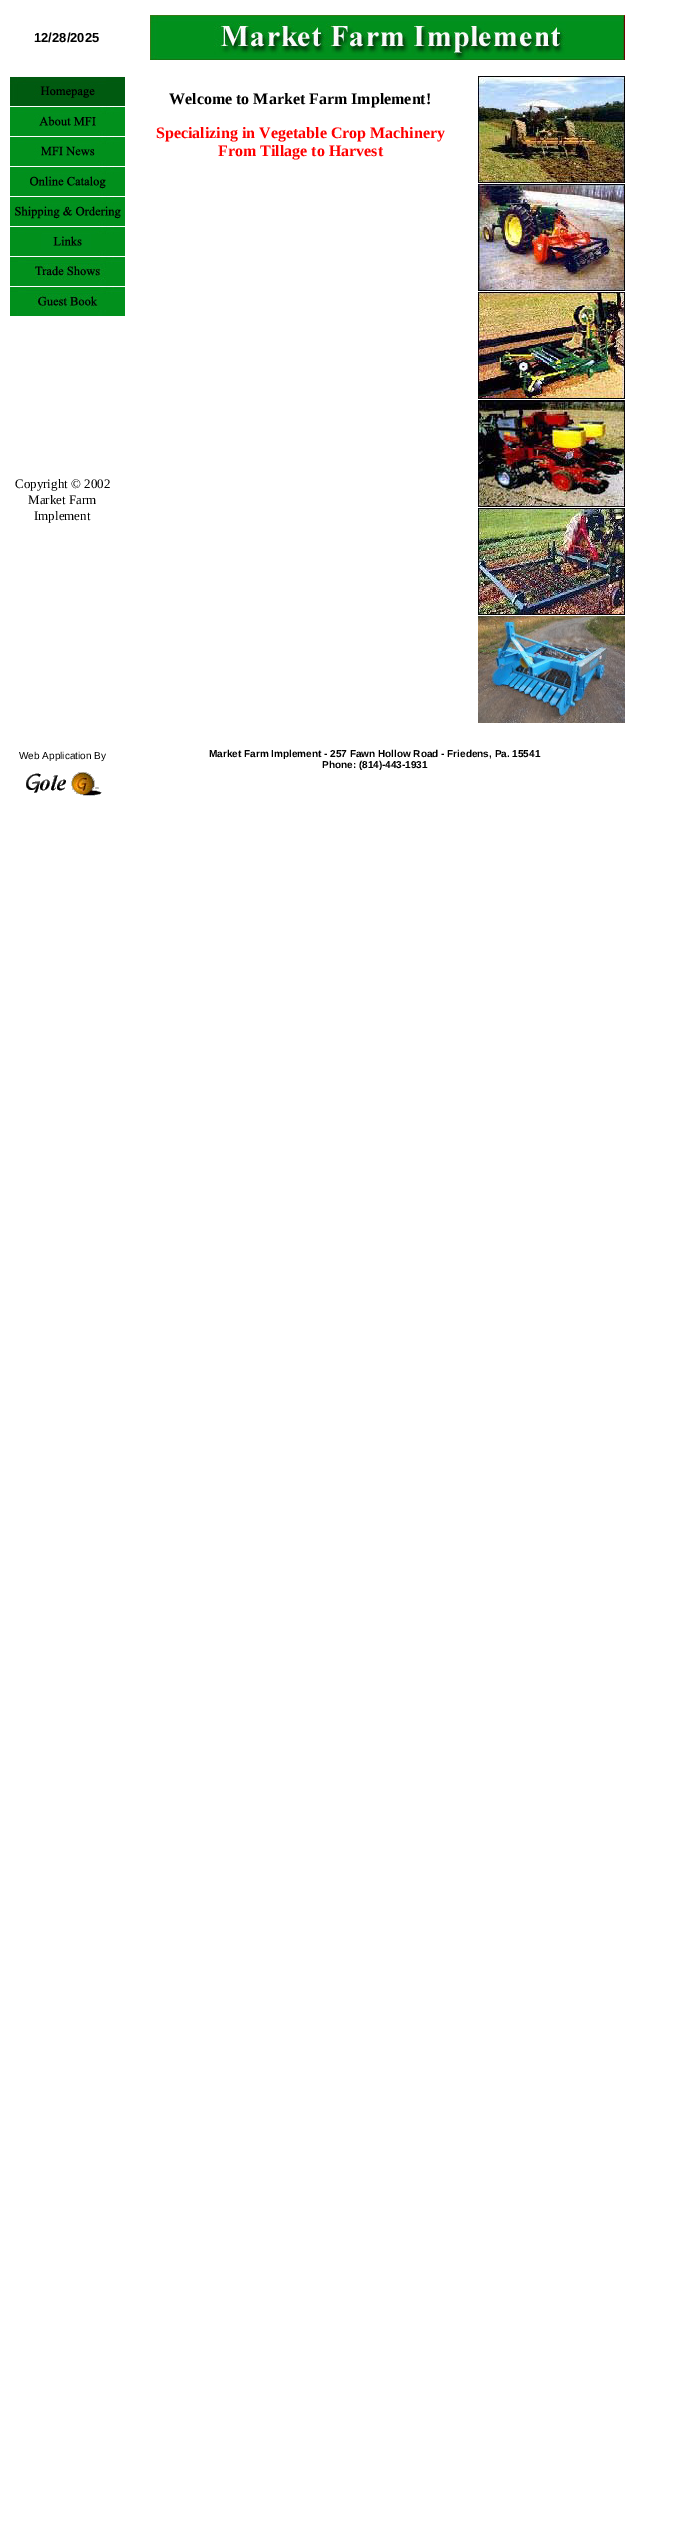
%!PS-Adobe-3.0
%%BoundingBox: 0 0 699 2545
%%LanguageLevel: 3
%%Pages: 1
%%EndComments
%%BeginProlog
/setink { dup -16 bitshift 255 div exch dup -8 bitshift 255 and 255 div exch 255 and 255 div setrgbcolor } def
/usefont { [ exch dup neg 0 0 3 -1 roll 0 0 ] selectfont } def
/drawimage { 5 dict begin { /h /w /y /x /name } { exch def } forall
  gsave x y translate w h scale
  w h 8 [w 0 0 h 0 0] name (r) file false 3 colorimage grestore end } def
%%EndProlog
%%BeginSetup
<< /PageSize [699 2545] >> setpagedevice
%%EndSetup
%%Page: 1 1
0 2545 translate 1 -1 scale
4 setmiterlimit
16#FFFFFF setink
0 0 699 2545 rectfill
/LiberationSans-Bold 13 usefont
16#000000 setink
34 42 moveto (12/28/2025) show
(img1.raw) 10 76 115 30 drawimage
(img2.raw) 10 106 115 30 drawimage
(img3.raw) 10 136 115 30 drawimage
(img4.raw) 10 166 115 30 drawimage
(img5.raw) 10 196 115 30 drawimage
(img6.raw) 10 226 115 30 drawimage
(img7.raw) 10 256 115 30 drawimage
(img8.raw) 10 286 115 30 drawimage
/LiberationSerif-Regular 13 usefont
[
    [(Copyright © 2002) 15 488]
    [(Market Farm) 28 504]
    [(Implement) 34 520]
] { aload pop moveto show } forall
(img9.raw) 150 15 475 45 drawimage
/LiberationSerif-Bold 16 usefont
169 104 moveto (Welcome to Market Farm Implement!) show
16#FF0000 setink
156 138 moveto (Specializing in Vegetable Crop Machinery) show
218 156 moveto (From Tillage to Harvest) show
(img10.raw) 478 76 147 107 drawimage
(img11.raw) 478 184 147 107 drawimage
(img12.raw) 478 292 147 107 drawimage
(img13.raw) 478 400 147 107 drawimage
(img14.raw) 478 508 147 107 drawimage
(img15.raw) 478 616 147 107 drawimage
/LiberationSans-Regular 10 usefont
16#000000 setink
19 759 moveto (Web Application By) show
(img16.raw) 26 772 76 24 drawimage
/LiberationSans-Bold 10 usefont
209 757 moveto (Market Farm Implement - 257 Fawn Hollow Road - Friedens, Pa. 15541) show
322 768 moveto (Phone: \(814\)-443-1931) show
showpage
%%EOF
